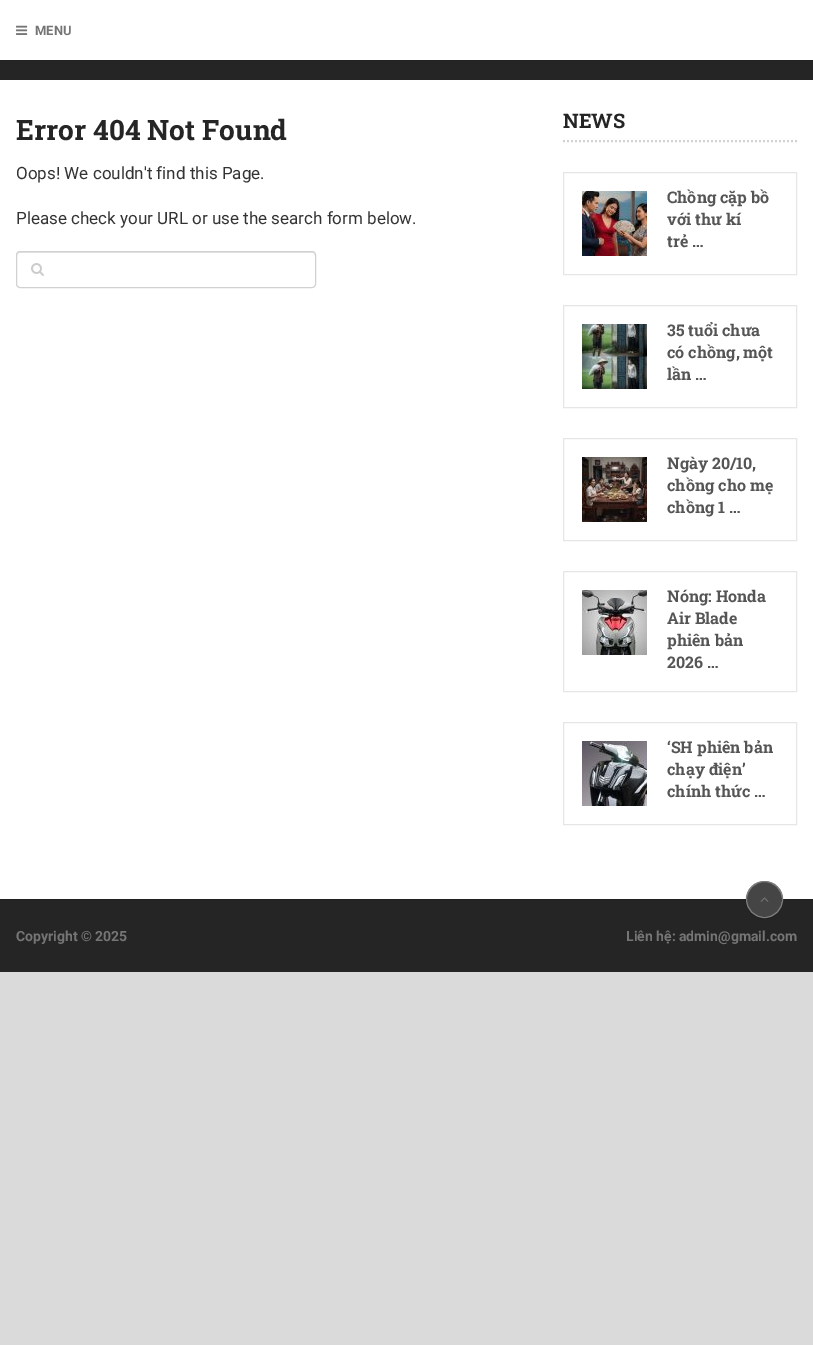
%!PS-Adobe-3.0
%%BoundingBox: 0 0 813 1345
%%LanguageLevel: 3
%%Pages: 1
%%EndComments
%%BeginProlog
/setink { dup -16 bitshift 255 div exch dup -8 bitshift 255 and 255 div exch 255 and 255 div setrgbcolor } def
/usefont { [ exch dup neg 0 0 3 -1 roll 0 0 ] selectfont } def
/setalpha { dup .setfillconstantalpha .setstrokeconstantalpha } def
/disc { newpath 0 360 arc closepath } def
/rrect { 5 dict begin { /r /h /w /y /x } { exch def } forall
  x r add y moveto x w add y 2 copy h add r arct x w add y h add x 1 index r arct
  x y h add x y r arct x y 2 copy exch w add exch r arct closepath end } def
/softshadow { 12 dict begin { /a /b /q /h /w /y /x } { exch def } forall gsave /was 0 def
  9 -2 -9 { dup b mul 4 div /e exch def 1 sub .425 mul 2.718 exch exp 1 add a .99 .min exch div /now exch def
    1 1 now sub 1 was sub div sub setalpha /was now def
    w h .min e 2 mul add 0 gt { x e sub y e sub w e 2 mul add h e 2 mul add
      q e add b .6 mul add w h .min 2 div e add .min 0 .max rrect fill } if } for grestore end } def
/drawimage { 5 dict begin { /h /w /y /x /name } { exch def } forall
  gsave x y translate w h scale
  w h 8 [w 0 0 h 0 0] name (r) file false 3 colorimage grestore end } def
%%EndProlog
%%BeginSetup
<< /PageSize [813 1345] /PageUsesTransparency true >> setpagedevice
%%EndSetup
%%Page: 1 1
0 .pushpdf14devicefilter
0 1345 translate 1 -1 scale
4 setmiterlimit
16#DADADA setink
0 0 813 1345 rectfill
16#252525 setink
0 60 813 20 rectfill
16#000000 setink
0 1 813 60 0 0.5 0.1 softshadow
16#FFFFFF setink
0 0 813 60 rectfill
(img1.raw) 16 25 12 10 drawimage
/Roboto-Bold 13 usefont
16#757575 setink
35 35 moveto (MENU) show
16#FFFFFF setink
0 80 813 819 rectfill
/RobotoSlab-Bold 28 usefont
16#252525 setink
16 140 moveto (Error 404 Not Found) show
/Roboto-Regular 17 usefont
16#333333 setink
16 179 moveto (Oops! We couldn't find this Page.) show
16 224 moveto (Please check your URL or use the search form below.) show
16#E6E6E6 setink
20 253 moveto 312 253 lineto 314 253 315 254 315 256 curveto 314 253 lineto 313 252 lineto 20 252 lineto 18 252 17 254 17 256 curveto 17 254 18 253 20 253 curveto closepath fill
16#D1D1D1 setink
16.5 251.5 299 36 3.5 rrect stroke
(img2.raw) 31 263 13 13 drawimage
2 setlinewidth
[2 2] 0 setdash
563 141 moveto 797 141 lineto stroke
/RobotoSlab-Bold 20 usefont
16#252525 setink
563 128 moveto (NEWS) show
16#E6E6E6 setink
1 setlinewidth
[] 0 setdash
563.5 172.5 233 102 rectstroke
(img3.raw) 582 191 65 65 drawimage
/RobotoSlab-Bold 16 usefont
16#555555 setink
[
    [(Chồng cặp bồ) 667 203]
    [(với thư kí) 667 225]
    [(trẻ …) 667 247]
] { aload pop moveto show } forall
16#E6E6E6 setink
563.5 305.5 233 102 rectstroke
(img4.raw) 582 324 65 65 drawimage
16#555555 setink
[
    [(35 tuổi chưa) 667 336]
    [(có chồng, một) 667 358]
    [(lần …) 667 380]
] { aload pop moveto show } forall
16#E6E6E6 setink
563.5 438.5 233 102 rectstroke
(img5.raw) 582 457 65 65 drawimage
16#555555 setink
[
    [(Ngày 20/10,) 667 469]
    [(chồng cho mẹ) 667 491]
    [(chồng 1 …) 667 513]
] { aload pop moveto show } forall
16#E6E6E6 setink
563.5 571.5 233 120 rectstroke
(img6.raw) 582 590 65 65 drawimage
16#555555 setink
[
    [(Nóng: Honda) 667 602]
    [(Air Blade) 667 624]
    [(phiên bản) 667 646]
    [(2026 …) 667 668]
] { aload pop moveto show } forall
16#E6E6E6 setink
563.5 722.5 233 102 rectstroke
(img7.raw) 582 741 65 65 drawimage
16#555555 setink
[
    [(‘SH phiên bản) 667 753]
    [(chạy điện’) 667 775]
    [(chính thức …) 667 797]
] { aload pop moveto show } forall
16#252526 setink
0 900 813 72 rectfill
16#212122 setink
0 899 813 1 rectfill
16#000000 setink
746 882 37 37 18.5 0.5 0.3 softshadow
16#454545 setink
764.5 899.5 18.5 disc fill
0.3 setalpha
16#FFFFFF setink
764.5 899.5 18 disc stroke
1 setalpha
(img8.raw) 760 897 9 5 drawimage
/Roboto-Bold 14 usefont
16#757575 setink
16 941 moveto (Copyright © 2025) show
626 941 moveto (Liên hệ: admin@gmail.com) show
.poppdf14devicefilter showpage
%%EOF
